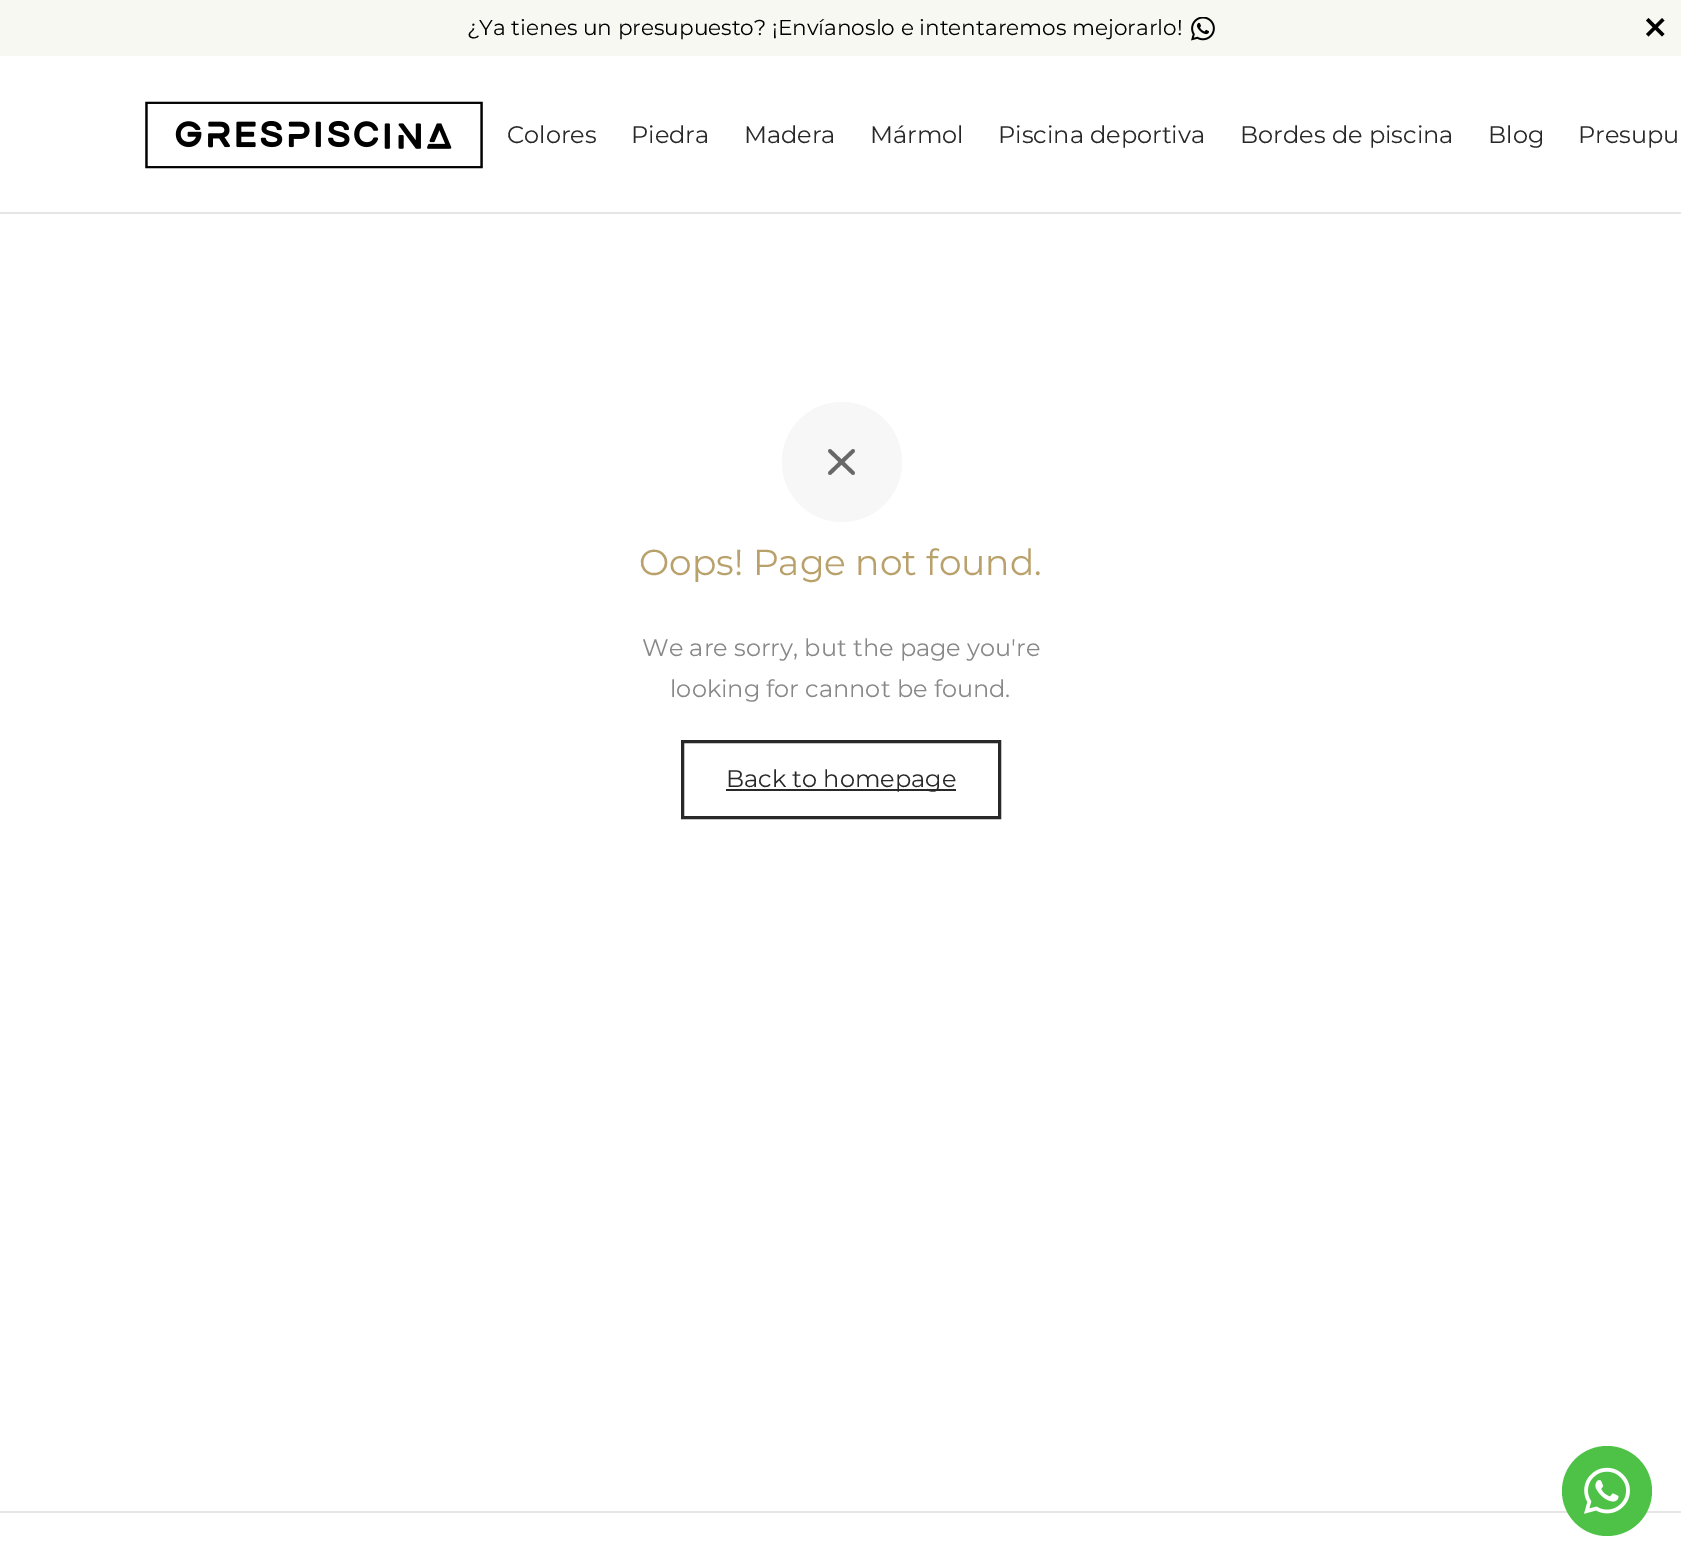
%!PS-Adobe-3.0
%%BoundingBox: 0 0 1681 1565
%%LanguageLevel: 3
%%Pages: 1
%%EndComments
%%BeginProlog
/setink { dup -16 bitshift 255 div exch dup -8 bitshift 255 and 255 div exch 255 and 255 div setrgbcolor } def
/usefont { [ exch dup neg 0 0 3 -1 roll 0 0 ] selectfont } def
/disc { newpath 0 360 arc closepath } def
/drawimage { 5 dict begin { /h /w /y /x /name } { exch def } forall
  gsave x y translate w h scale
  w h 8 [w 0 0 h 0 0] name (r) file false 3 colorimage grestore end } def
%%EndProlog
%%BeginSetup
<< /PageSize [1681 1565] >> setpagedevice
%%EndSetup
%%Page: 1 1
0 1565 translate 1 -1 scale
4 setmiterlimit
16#FFFFFF setink
0 0 1681 1565 rectfill
16#F8F8F3 setink
0 0 1681 56 rectfill
/Montserrat-Thin 21.6 usefont
16#000000 setink
467 35 moveto (¿Ya tienes un presupuesto? ¡Envíanoslo e intentaremos mejorarlo!) show
(img1.raw) 1191 17 24 24 drawimage
1648.5 18 moveto 1664.5 34 lineto 1662 36.5 lineto 1646 20.5 lineto closepath fill
1646 34 moveto 1662 18 lineto 1664.5 20.5 lineto 1648.5 36.5 lineto closepath fill
(img2.raw) 145 101 338 68 drawimage
/Montserrat-Thin 24 usefont
16#282828 setink
[
    [(Colores) 507 143]
    [(Piedra) 631 143]
    [(Madera) 744 143]
    [(Mármol) 870 143]
    [(Piscina deportiva) 998 143]
    [(Bordes de piscina) 1240 143]
    [(Blog) 1488 143]
    [(Presupu) 1578 143]
] { aload pop moveto show } forall
16#E6E6E6 setink
0 212 1681 2 rectfill
16#F7F7F7 setink
842 462 60 disc fill
16#686868 setink
3.8 setlinewidth
1 setlinecap
1 setlinejoin
853 451 moveto 830 473 lineto 830 451 moveto 853 473 lineto stroke
/Montserrat-Thin 36 usefont
16#B9A16B setink
639 575 moveto (Oops! Page not found.) show
/Montserrat-Thin 24 usefont
16#888888 setink
642 656 moveto (We are sorry, but the page you're) show
670 697 moveto (looking for cannot be found.) show
16#282828 setink
3 setlinewidth
0 setlinecap
0 setlinejoin
682.5 741.5 317 76 rectstroke
726 789 230 2 rectfill
726 787 moveto (Back to homepage) show
16#E6E6E6 setink
0 1511 1681 2 rectfill
16#4DC247 setink
1607 1491 45 disc fill
(img3.raw) 1584 1467 46 47 drawimage
showpage
%%EOF
